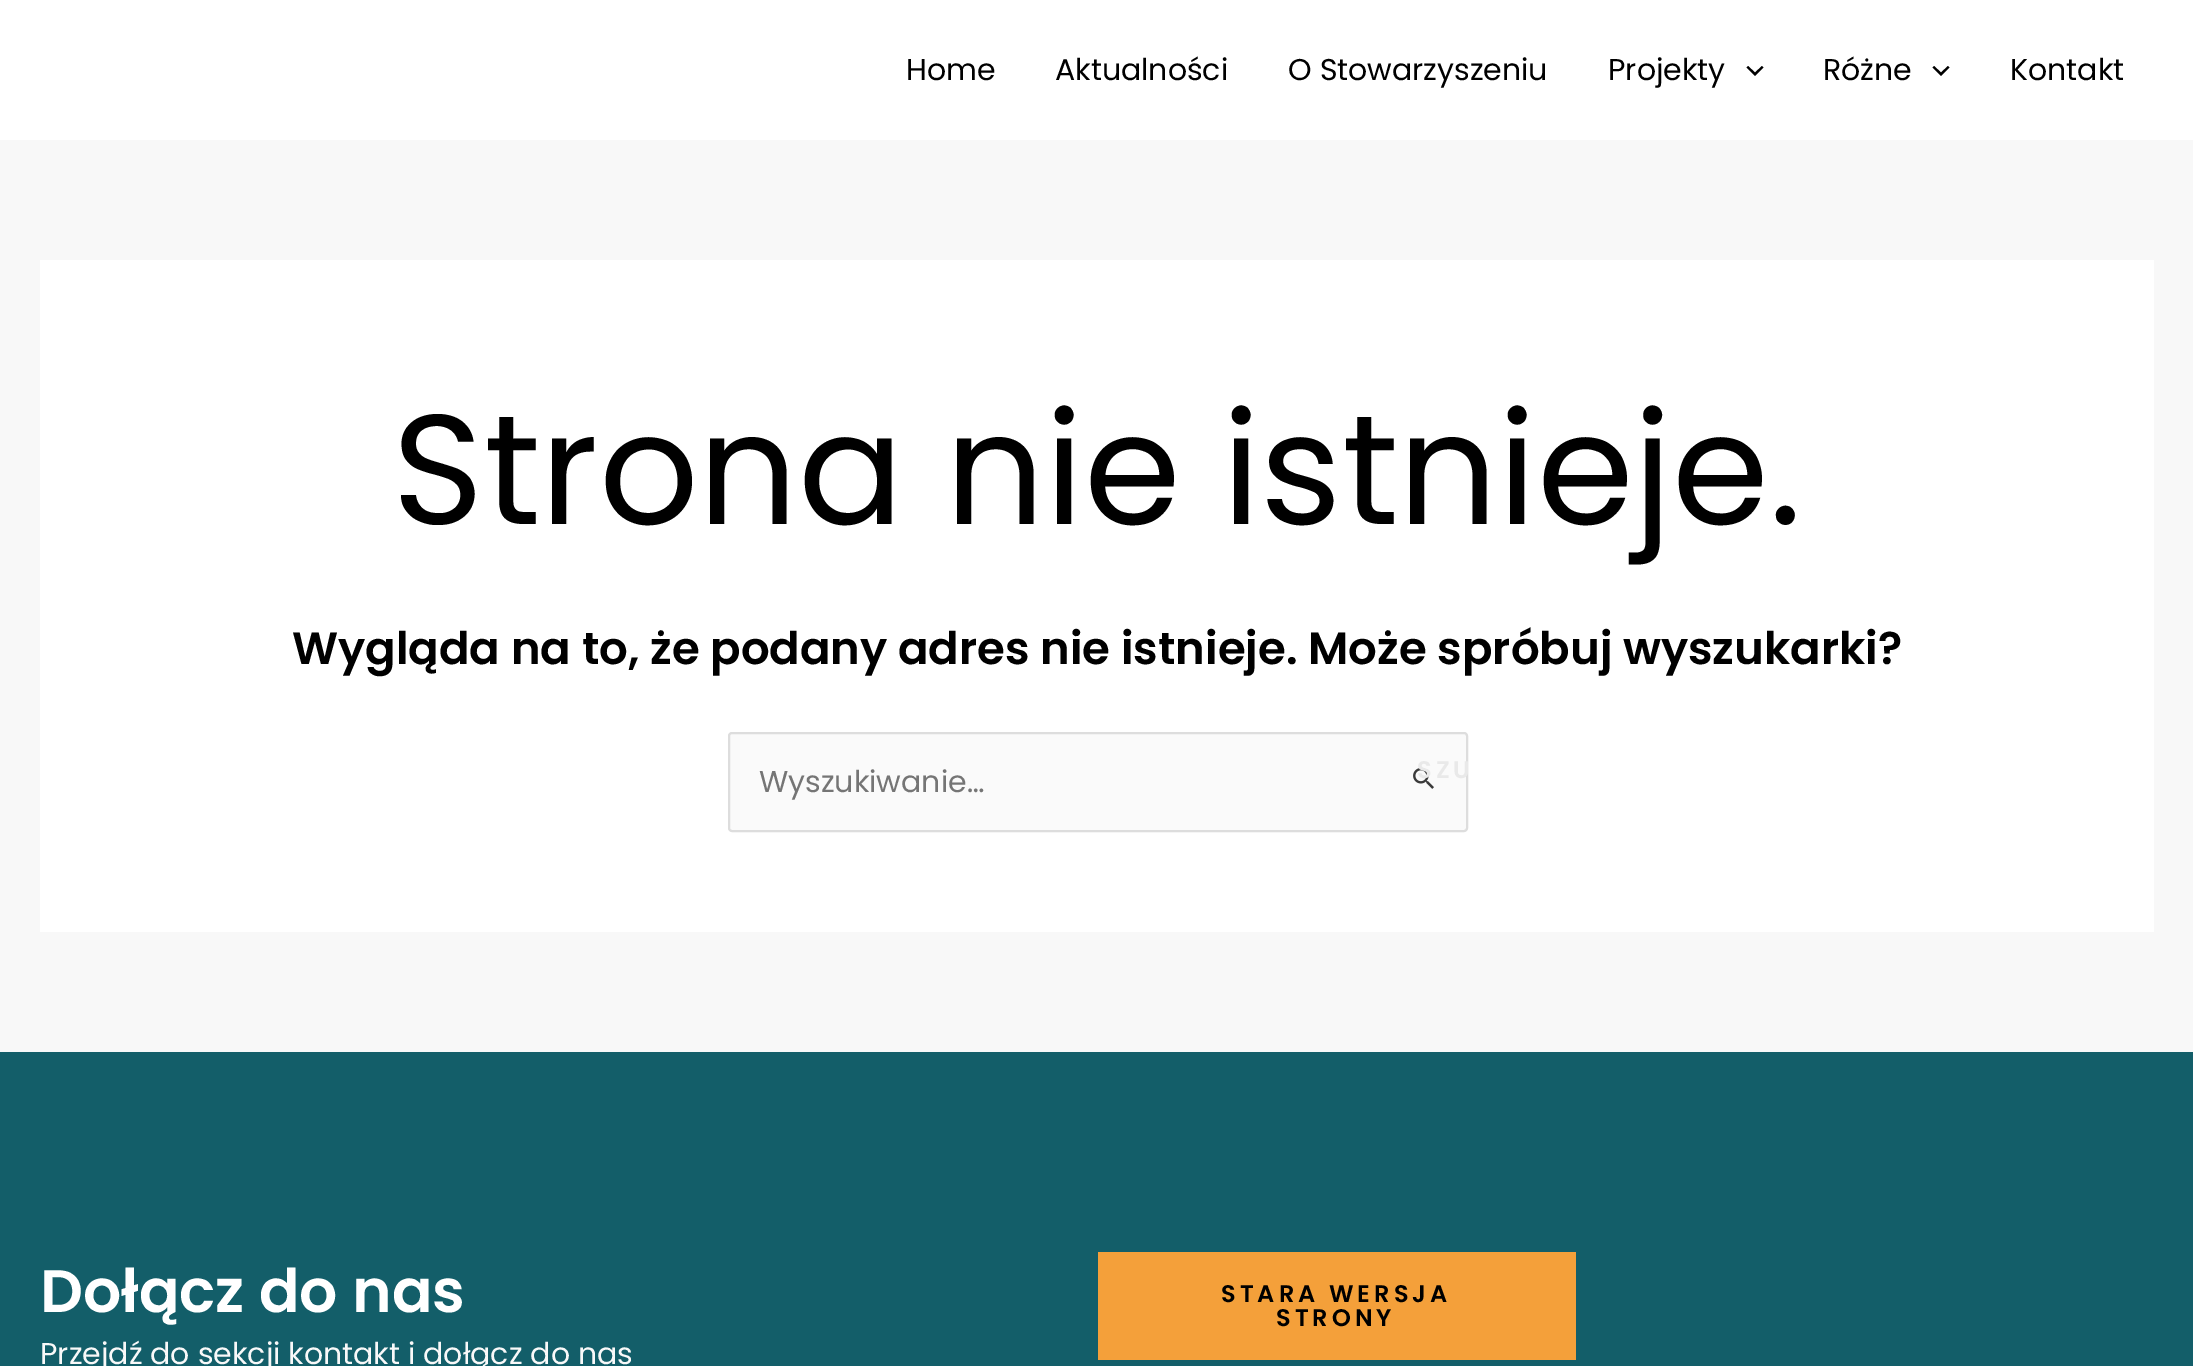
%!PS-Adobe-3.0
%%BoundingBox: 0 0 2193 1366
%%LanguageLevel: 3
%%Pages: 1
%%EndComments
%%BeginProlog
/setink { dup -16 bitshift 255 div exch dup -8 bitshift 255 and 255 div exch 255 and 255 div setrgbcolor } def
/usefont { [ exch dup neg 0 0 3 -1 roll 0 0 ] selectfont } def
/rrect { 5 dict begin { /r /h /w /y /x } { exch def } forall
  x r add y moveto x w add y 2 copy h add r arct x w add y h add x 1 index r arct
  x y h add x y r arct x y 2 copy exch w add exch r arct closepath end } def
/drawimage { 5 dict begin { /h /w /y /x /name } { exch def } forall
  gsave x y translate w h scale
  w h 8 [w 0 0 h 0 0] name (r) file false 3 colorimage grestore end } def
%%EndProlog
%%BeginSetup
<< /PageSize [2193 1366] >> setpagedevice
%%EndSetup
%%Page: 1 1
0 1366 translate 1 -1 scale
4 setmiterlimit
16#F8F8F8 setink
0 0 2193 1366 rectfill
16#FFFFFF setink
0 0 2193 140 rectfill
/Poppins-Regular 30 usefont
16#000000 setink
[
    [(Home) 906 80]
    [(Aktualności) 1055 80]
    [(O Stowarzyszeniu) 1288 80]
    [(Projekty) 1608 80]
] { aload pop moveto show } forall
1746.5 67.5 moveto 1755 76 lineto 1763.5 67.5 lineto 1762 66 lineto 1755 72.5 lineto 1748 66 lineto closepath fill
1823 80 moveto (Różne) show
1932.5 67.5 moveto 1941 76 lineto 1949.5 67.5 lineto 1948 66 lineto 1941 72.5 lineto 1934 66 lineto closepath fill
2010 80 moveto (Kontakt) show
16#FFFFFF setink
40 260 2114 672 rectfill
/Poppins-Regular 156 usefont
16#000000 setink
392 524 moveto (Strona nie istnieje.) show
/Poppins-SemiBold 45 usefont
292 664 moveto (Wygląda na to, że podany adres nie istnieje. Może spróbuj wyszukarki?) show
16#FAFAFA setink
729 733 738 98 3 rrect gsave fill grestore
16#DDDDDD setink
2 setlinewidth
stroke
/Poppins-Regular 30 usefont
16#757575 setink
759 792 moveto (Wyszukiwanie…) show
(img1.raw) 1413 767 21 22 drawimage
gsave
1378 732 90 76 4 rrect clip newpath
/Poppins-SemiBold 24 usefont
16#E9E9E9 setink
1417 778 moveto 4 0 (SZU) ashow
grestore
16#135E69 setink
0 1052 2193 314 rectfill
/Poppins-SemiBold 60 usefont
16#FFFFFF setink
40 1312 moveto (Dołącz do nas) show
/Poppins-Regular 30 usefont
16#F9F9F9 setink
40 1364 moveto (Przejdź do sekcji kontakt i dołącz do nas) show
16#F4A03A setink
1098 1252 478 108 rectfill
/Poppins-SemiBold 24 usefont
16#000000 setink
1221 1302 moveto 4 0 (STARA WERSJA) ashow
1276 1326 moveto 4 0 (STRONY) ashow
showpage
%%EOF
